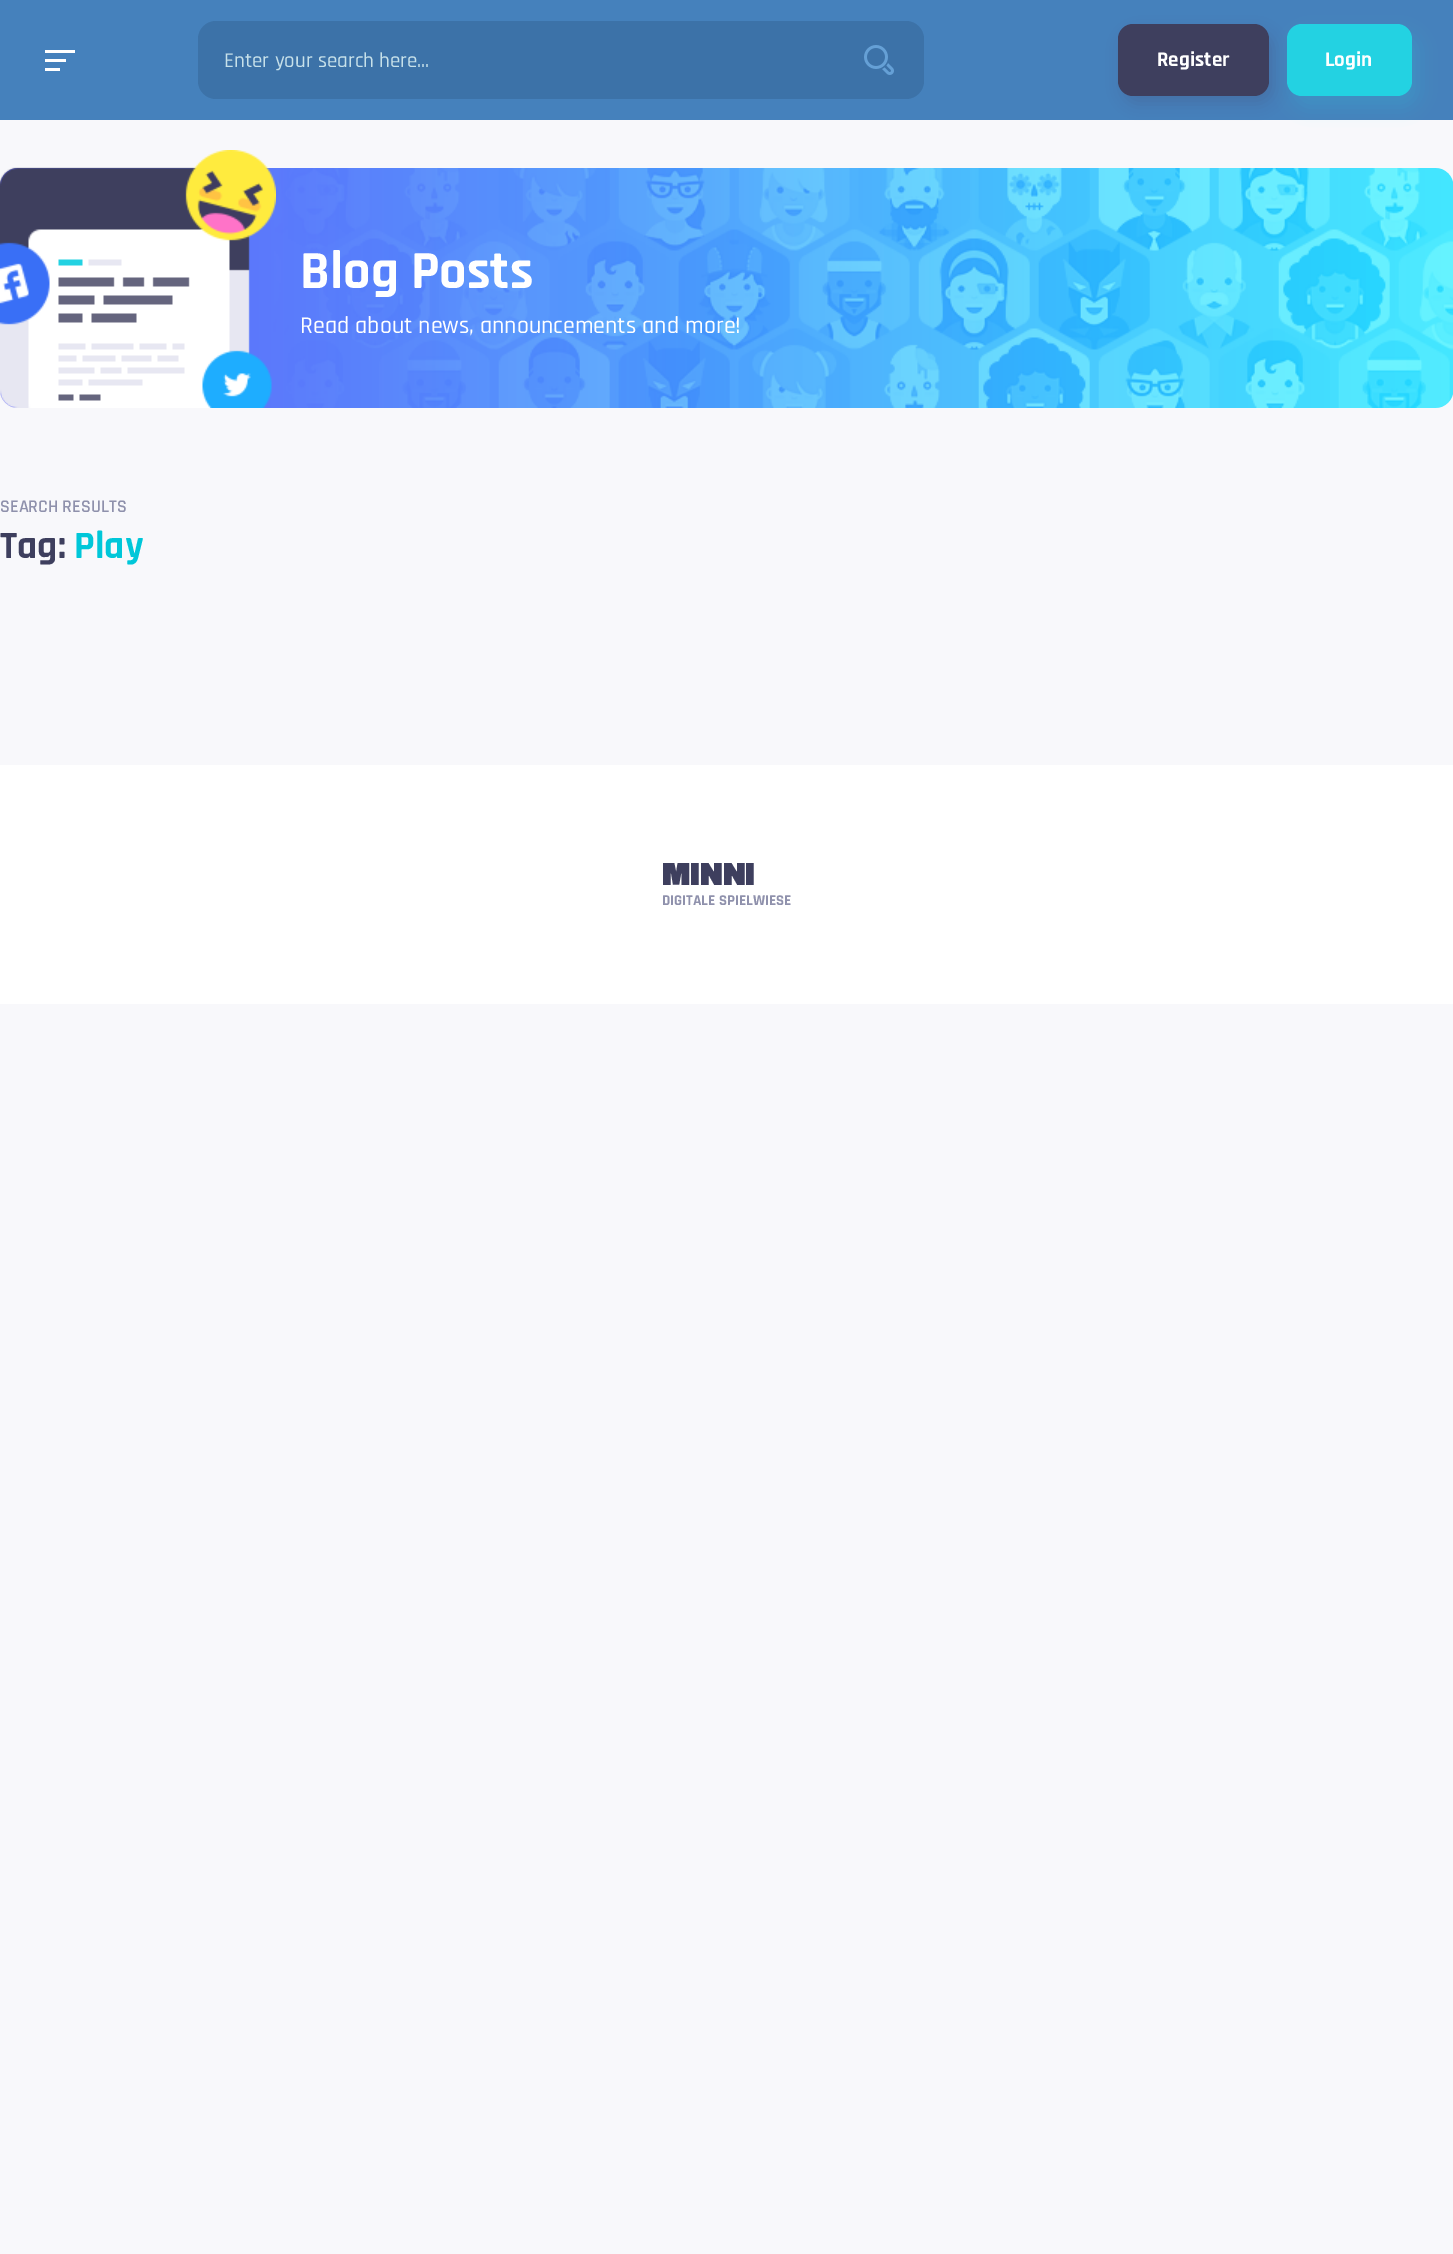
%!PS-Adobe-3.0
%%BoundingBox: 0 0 1453 2254
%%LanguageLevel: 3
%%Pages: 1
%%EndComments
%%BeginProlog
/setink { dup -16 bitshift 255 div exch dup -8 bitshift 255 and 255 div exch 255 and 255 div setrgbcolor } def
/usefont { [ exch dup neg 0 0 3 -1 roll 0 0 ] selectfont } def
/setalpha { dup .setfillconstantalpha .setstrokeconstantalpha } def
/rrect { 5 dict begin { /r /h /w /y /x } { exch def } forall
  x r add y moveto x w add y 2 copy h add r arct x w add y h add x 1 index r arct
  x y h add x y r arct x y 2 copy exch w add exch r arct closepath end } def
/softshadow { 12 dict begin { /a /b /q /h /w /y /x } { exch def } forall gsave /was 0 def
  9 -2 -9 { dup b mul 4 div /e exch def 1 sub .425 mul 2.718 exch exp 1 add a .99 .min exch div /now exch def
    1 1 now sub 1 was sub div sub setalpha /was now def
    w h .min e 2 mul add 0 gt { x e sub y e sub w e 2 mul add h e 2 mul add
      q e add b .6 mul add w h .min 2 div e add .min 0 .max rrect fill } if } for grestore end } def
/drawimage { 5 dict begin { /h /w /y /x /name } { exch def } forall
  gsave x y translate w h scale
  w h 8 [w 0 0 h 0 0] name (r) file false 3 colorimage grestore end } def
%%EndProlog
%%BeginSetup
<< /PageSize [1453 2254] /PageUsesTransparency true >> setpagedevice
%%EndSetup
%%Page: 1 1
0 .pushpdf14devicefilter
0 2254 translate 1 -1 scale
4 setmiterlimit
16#F8F8FB setink
0 0 1453 2254 rectfill
[
    [0 0 1453 120 16#4581BC]
    [45 50 30 3 16#FFFFFF]
    [45 59 21 3 16#FFFFFF]
    [45 68 15 3 16#FFFFFF]
] { aload pop setink rectfill } forall
16#3C72A8 setink
198 21 726 78 18 rrect fill
/Rajdhani-Medium 21 usefont
16#C7E1EA setink
224 67 moveto (Enter your search here...) show
(img1.raw) 864 45 30 30 drawimage
16#3E3F5E setink
1122 32 152 72 15 7.5 0.2 softshadow
1118 24 151 72 15 rrect fill
/Rajdhani-Bold 21 usefont
16#FFFFFF setink
1157 66 moveto (Register) show
16#23D2E2 setink
1293 35 125 72 15 9 0.2 softshadow
1287 24 125 72 15 rrect fill
16#FFFFFF setink
1325 66 moveto (Login) show
(img2.raw) 0 168 1453 240 drawimage
(img3.raw) 0 150 276 258 drawimage
/Rajdhani-Bold 54 usefont
300 288 moveto (Blog Posts) show
/Rajdhani-Medium 24 usefont
300 333 moveto (Read about news, announcements and more!) show
/Rajdhani-SemiBold 18 usefont
16#8F91AC setink
0 512 moveto (SEARCH RESULTS) show
/Rajdhani-Bold 39 usefont
16#3E3F5E setink
0 558 moveto (Tag:) show
16#00C7D9 setink
74 558 moveto (Play) show
16#FFFFFF setink
0 765 1453 239 rectfill
/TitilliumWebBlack-Black 33 usefont
16#3E3F5E setink
662 885 moveto (MINNI) show
/Rajdhani-Bold 15 usefont
16#8F91AC setink
662 905 moveto (DIGITALE SPIELWIESE) show
.poppdf14devicefilter showpage
%%EOF
